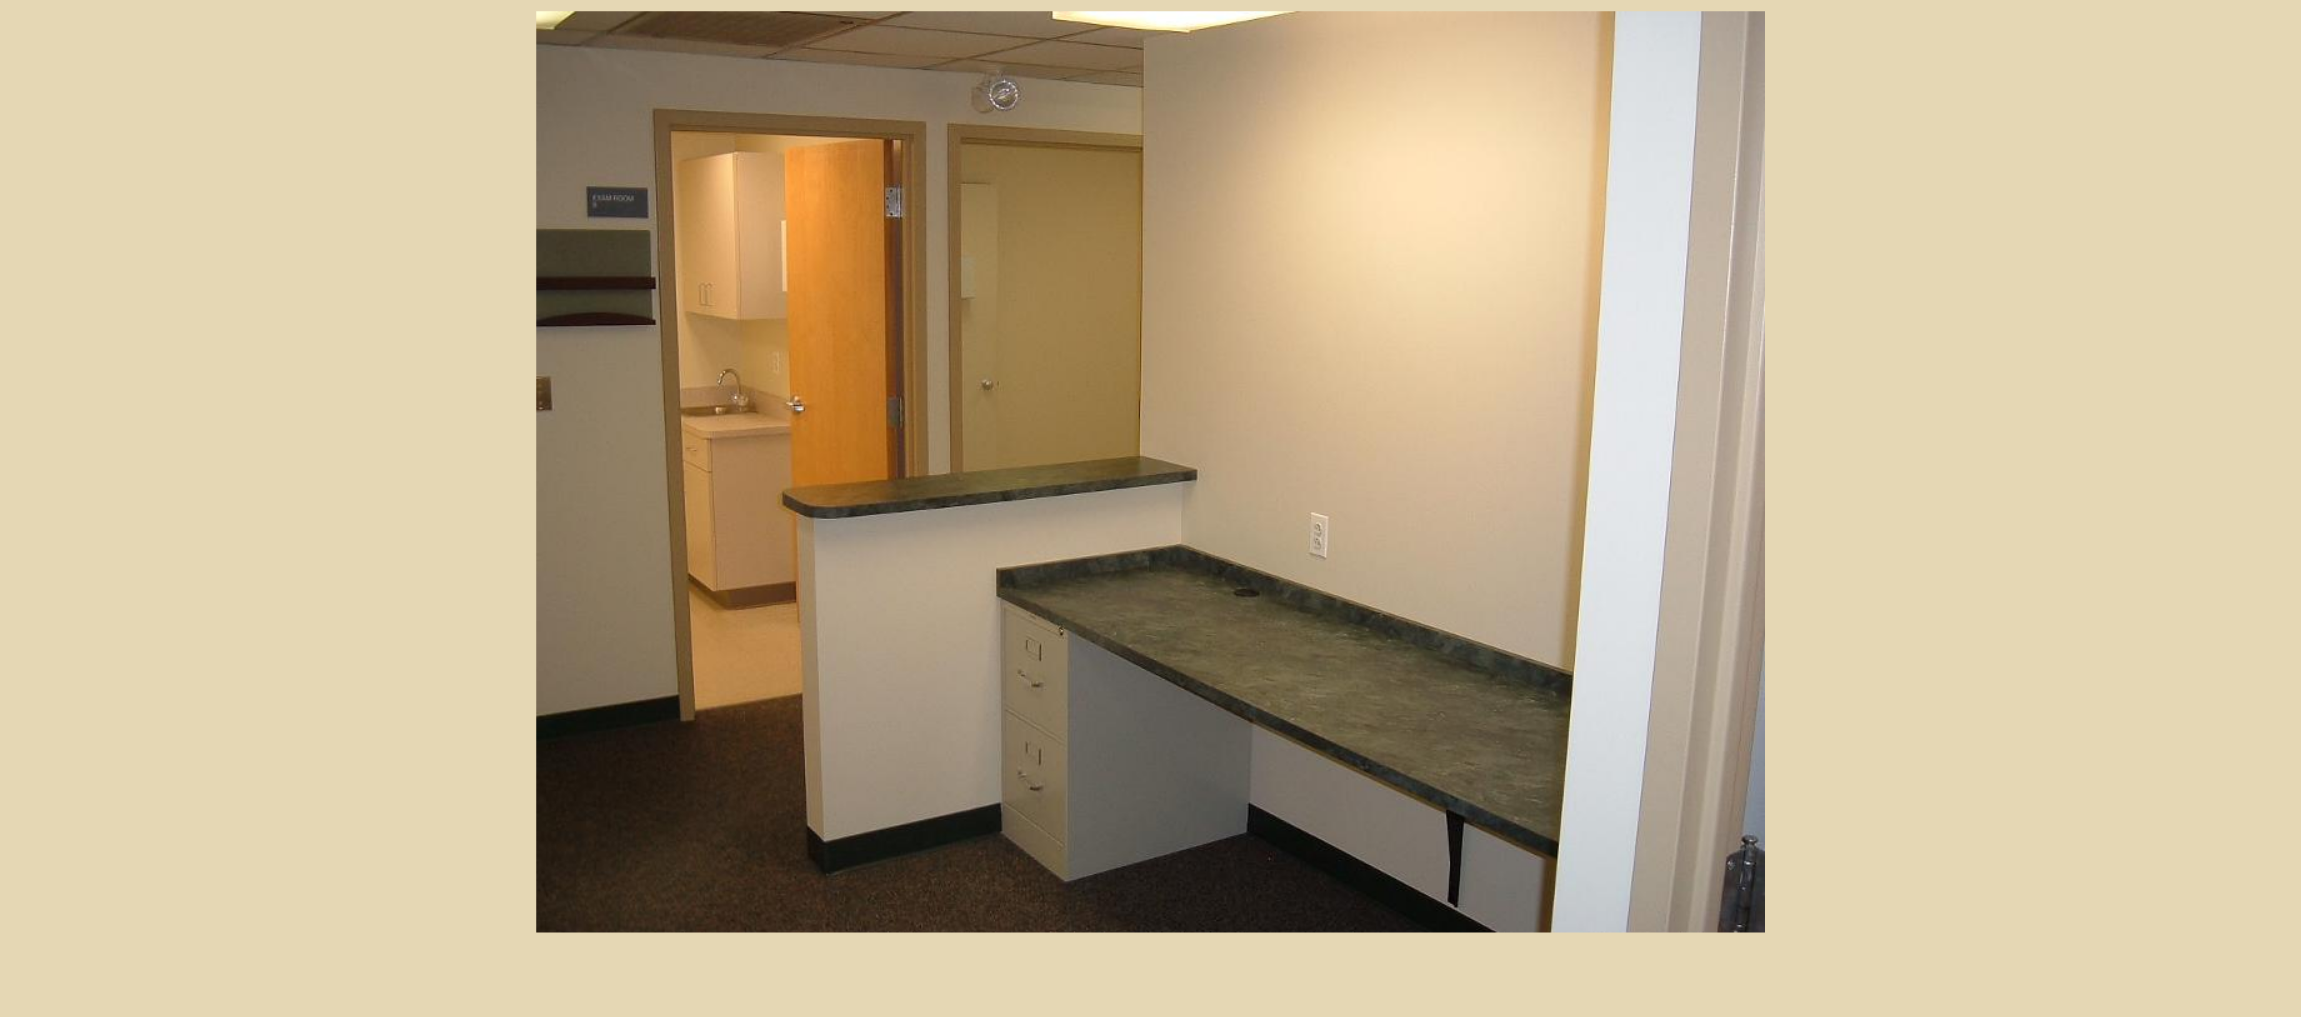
%!PS-Adobe-3.0
%%BoundingBox: 0 0 2301 1017
%%LanguageLevel: 3
%%Pages: 1
%%EndComments
%%BeginProlog
/setink { dup -16 bitshift 255 div exch dup -8 bitshift 255 and 255 div exch 255 and 255 div setrgbcolor } def
/drawimage { 5 dict begin { /h /w /y /x /name } { exch def } forall
  gsave x y translate w h scale
  w h 8 [w 0 0 h 0 0] name (r) file false 3 colorimage grestore end } def
%%EndProlog
%%BeginSetup
<< /PageSize [2301 1017] >> setpagedevice
%%EndSetup
%%Page: 1 1
0 1017 translate 1 -1 scale
4 setmiterlimit
16#E5D7B4 setink
0 0 2301 1017 rectfill
(img1.raw) 536 11 1229 922 drawimage
showpage
%%EOF
